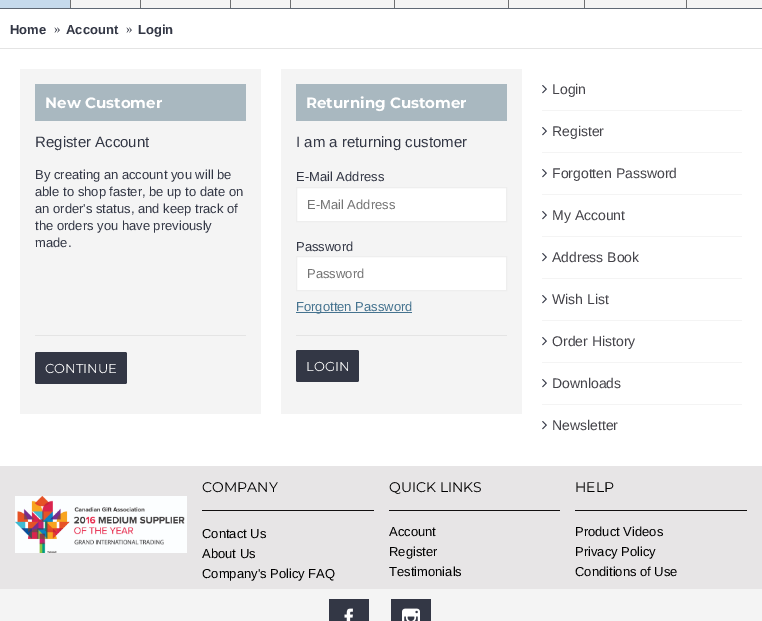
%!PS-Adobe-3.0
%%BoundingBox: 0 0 762 621
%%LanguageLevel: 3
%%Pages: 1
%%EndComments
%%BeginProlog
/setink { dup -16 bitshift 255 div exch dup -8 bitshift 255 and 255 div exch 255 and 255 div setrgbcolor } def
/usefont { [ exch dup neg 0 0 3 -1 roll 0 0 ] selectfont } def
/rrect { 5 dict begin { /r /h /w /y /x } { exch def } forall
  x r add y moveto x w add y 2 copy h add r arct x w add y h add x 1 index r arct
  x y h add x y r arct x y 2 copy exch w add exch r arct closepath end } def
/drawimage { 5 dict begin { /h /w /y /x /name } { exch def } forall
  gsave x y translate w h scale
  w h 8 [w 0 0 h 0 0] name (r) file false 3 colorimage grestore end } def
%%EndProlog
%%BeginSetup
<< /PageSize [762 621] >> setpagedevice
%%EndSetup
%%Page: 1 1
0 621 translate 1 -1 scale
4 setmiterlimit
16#FFFFFF setink
0 0 762 621 rectfill
[
    [71 0 691 8 16#F4F4F4]
    [0 8 762 1 16#5F6874]
    [0 0 70 8 16#C6DAEC]
    [70 0 1 8 16#6E6F71]
    [140 0 1 8 16#6E6F71]
    [230 0 1 8 16#6E6F71]
    [290 0 1 8 16#6E6F71]
    [394 0 1 8 16#6E6F71]
    [508 0 1 8 16#6E6F71]
    [584 0 1 8 16#6E6F71]
    [686 0 1 8 16#6E6F71]
    [0 48 762 1 16#E4E4E4]
] { aload pop setink rectfill } forall
/LiberationSans-Bold 13 usefont
16#333745 setink
10 34 moveto (Home) show
/LiberationSerif-Regular 13 usefont
54 33 moveto (») show
/LiberationSans-Bold 13 usefont
66 34 moveto (Account) show
/LiberationSerif-Regular 13 usefont
126 33 moveto (») show
/LiberationSans-Bold 13 usefont
138 34 moveto (Login) show
16#F4F4F4 setink
20 69 241 345 rectfill
16#A9B8C0 setink
35 84 211 37 rectfill
/Montserrat-Bold 15 usefont
16#FFFFFF setink
45 108 moveto (New Customer) show
/LiberationSans-Regular 15 usefont
16#333745 setink
35 147 moveto (Register Account) show
/LiberationSans-Regular 13 usefont
[
    [(By creating an account you will be) 35 179]
    [(able to shop faster, be up to date on) 35 196]
    [(an order's status, and keep track of) 35 213]
    [(the orders you have previously) 35 230]
    [(made.) 35 247]
] { aload pop moveto show } forall
16#E4E4E4 setink
35 335 211 1 rectfill
16#333745 setink
35 352 92 32 2 rrect fill
/Montserrat-Regular 13 usefont
16#FFFFFF setink
45 373 moveto (CONTINUE) show
16#F4F4F4 setink
281 69 241 345 rectfill
16#A9B8C0 setink
296 84 211 37 rectfill
/Montserrat-Bold 15 usefont
16#FFFFFF setink
306 108 moveto (Returning Customer) show
/LiberationSans-Regular 15 usefont
16#333745 setink
296 147 moveto (I am a returning customer) show
/LiberationSans-Regular 13 usefont
296 181 moveto (E-Mail Address) show
16#FFFFFF setink
296.5 187.5 moveto 506.5 187.5 lineto 506.5 221.5 lineto 296.5 221.5 lineto closepath gsave fill grestore
16#EEEEEE setink
stroke
16#757575 setink
307 209 moveto (E-Mail Address) show
16#333745 setink
296 251 moveto (Password) show
16#FFFFFF setink
296.5 256.5 moveto 506.5 256.5 lineto 506.5 290.5 lineto 296.5 290.5 lineto closepath gsave fill grestore
16#EEEEEE setink
stroke
16#757575 setink
307 278 moveto (Password) show
16#45738F setink
296 312 116 1 rectfill
296 311 moveto (Forgotten Password) show
16#E4E4E4 setink
296 335 211 1 rectfill
16#333745 setink
296 350 63 32 2 rrect fill
/Montserrat-Regular 13 usefont
16#FFFFFF setink
306 371 moveto (LOGIN) show
16#F4F4F4 setink
542 110 200 1 rectfill
(img1.raw) 542 85 5 9 drawimage
/LiberationSans-Regular 14 usefont
16#444349 setink
552 94 moveto (Login) show
16#F4F4F4 setink
542 152 200 1 rectfill
(img1.raw) 542 127 5 9 drawimage
16#444349 setink
552 136 moveto (Register) show
16#F4F4F4 setink
542 194 200 1 rectfill
(img1.raw) 542 169 5 9 drawimage
16#444349 setink
552 178 moveto (Forgotten Password) show
16#F4F4F4 setink
542 236 200 1 rectfill
(img1.raw) 542 211 5 9 drawimage
16#444349 setink
552 220 moveto (My Account) show
16#F4F4F4 setink
542 278 200 1 rectfill
(img1.raw) 542 253 5 9 drawimage
16#444349 setink
552 262 moveto (Address Book) show
16#F4F4F4 setink
542 320 200 1 rectfill
(img1.raw) 542 295 5 9 drawimage
16#444349 setink
552 304 moveto (Wish List) show
16#F4F4F4 setink
542 362 200 1 rectfill
(img1.raw) 542 337 5 9 drawimage
16#444349 setink
552 346 moveto (Order History) show
16#F4F4F4 setink
542 404 200 1 rectfill
(img1.raw) 542 379 5 9 drawimage
16#444349 setink
552 388 moveto (Downloads) show
(img1.raw) 542 421 5 9 drawimage
552 430 moveto (Newsletter) show
16#E7E5E6 setink
0 466 762 123 rectfill
(img2.raw) 15 496 172 57 drawimage
16#110F0F setink
202 510 172 1 rectfill
/Montserrat-Regular 14 usefont
16#000000 setink
202 492 moveto (COMPANY) show
/LiberationSans-Regular 13 usefont
[
    [(Contact Us) 202 538]
    [(About Us) 202 558]
    [(Company's Policy FAQ) 202 578]
] { aload pop moveto show } forall
16#110F0F setink
389 510 171 1 rectfill
/Montserrat-Regular 14 usefont
16#000000 setink
389 492 moveto (QUICK LINKS) show
/LiberationSans-Regular 13 usefont
[
    [(Account) 389 536]
    [(Register) 389 556]
    [(Testimonials) 389 576]
] { aload pop moveto show } forall
16#110F0F setink
575 510 172 1 rectfill
/Montserrat-Regular 14 usefont
16#000000 setink
575 492 moveto (HELP) show
/LiberationSans-Regular 13 usefont
[
    [(Product Videos) 575 536]
    [(Privacy Policy) 575 556]
    [(Conditions of Use) 575 576]
] { aload pop moveto show } forall
16#F4F4F4 setink
0 589 762 32 rectfill
16#333745 setink
329 599 40 22 rectfill
(img3.raw) 344 608 9 13 drawimage
391 599 40 22 rectfill
(img4.raw) 402 608 18 13 drawimage
showpage
%%EOF
